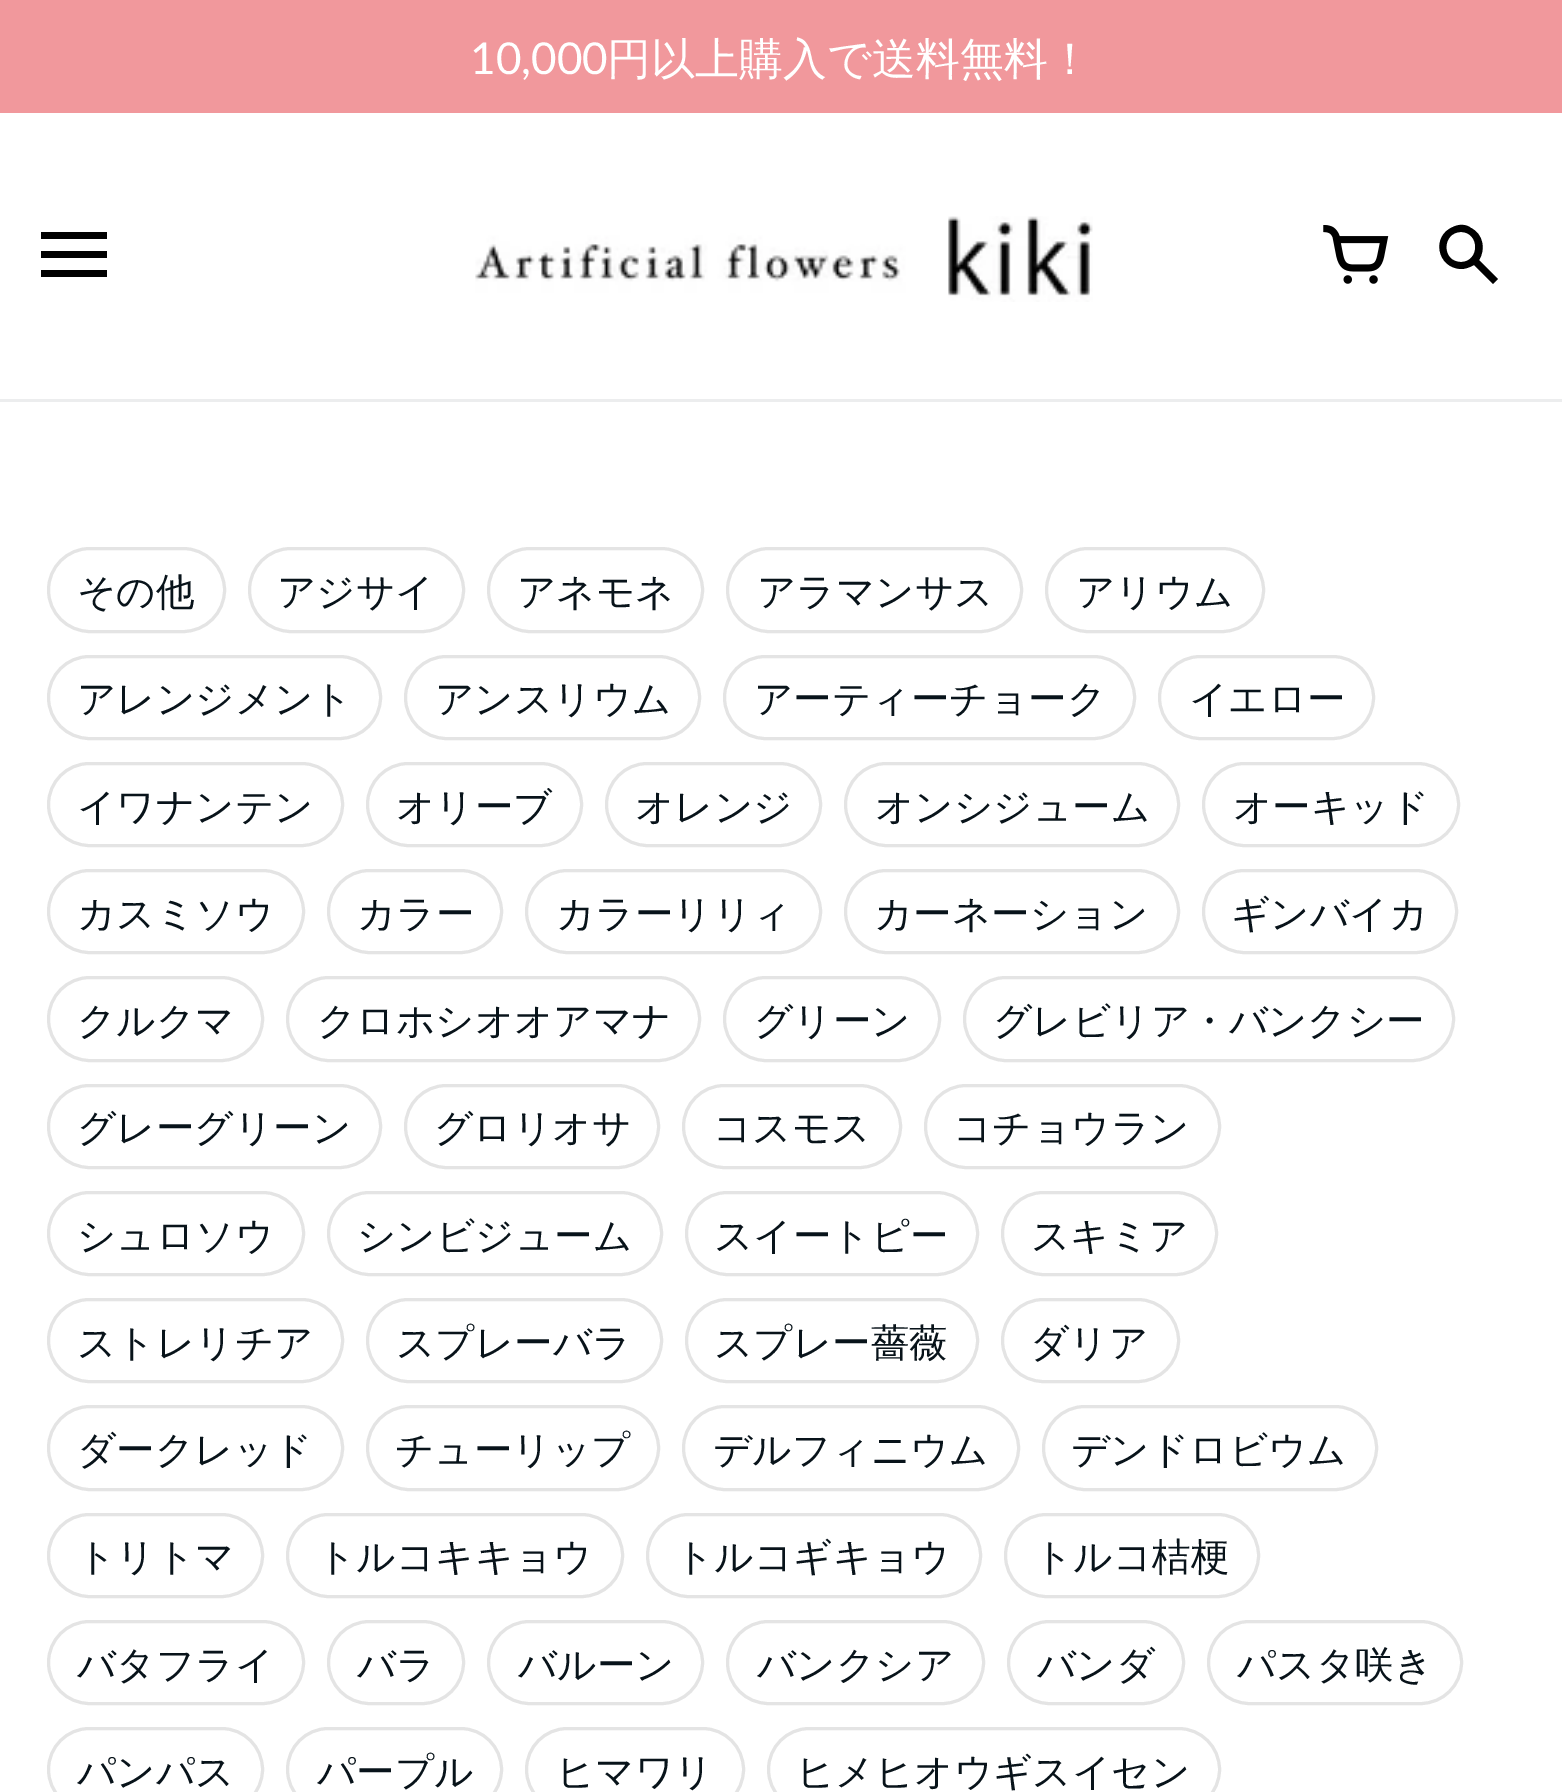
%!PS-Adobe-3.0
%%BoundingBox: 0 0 1562 1792
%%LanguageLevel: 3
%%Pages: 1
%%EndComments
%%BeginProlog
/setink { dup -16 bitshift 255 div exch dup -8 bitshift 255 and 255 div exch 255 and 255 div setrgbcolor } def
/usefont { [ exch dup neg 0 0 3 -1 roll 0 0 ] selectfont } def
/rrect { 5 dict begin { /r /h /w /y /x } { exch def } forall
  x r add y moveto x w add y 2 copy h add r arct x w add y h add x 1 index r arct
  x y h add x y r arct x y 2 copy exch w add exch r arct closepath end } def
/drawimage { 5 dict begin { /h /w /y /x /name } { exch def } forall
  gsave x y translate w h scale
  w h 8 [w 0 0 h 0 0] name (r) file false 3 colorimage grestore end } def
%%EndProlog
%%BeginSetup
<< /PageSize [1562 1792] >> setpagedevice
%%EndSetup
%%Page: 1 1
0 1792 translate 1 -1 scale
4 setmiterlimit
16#FFFFFF setink
0 0 1562 1792 rectfill
16#F1989C setink
0 0 1562 113 rectfill
/Lato-Regular 44 usefont
16#FFFFFF setink
470 74 moveto (10,000) show
/WenQuanYiZenHei-Medium 44 usefont
607 74 moveto (円以上購入で送料無料！) show
16#ECEDEE setink
0 399 1562 3 rectfill
16#000000 setink
41 232 moveto 107 232 lineto 107 239 lineto 41 239 lineto closepath 41 251 moveto 107 251 lineto 107 258 lineto 41 258 lineto closepath 41 270 moveto 107 270 lineto 107 277 lineto 41 277 lineto closepath 41 270 moveto 41 270 lineto closepath fill
(img1.raw) 475 216 618 86 drawimage
(img2.raw) 1323 225 66 59 drawimage
1498 279 moveto 1479 260 lineto 1486 249 1483 234 1471 228 curveto 1466 224 1459 224 1453 227 curveto 1431 236 1437 268 1461 269 curveto 1466 269 1470 267 1474 265 curveto 1493 284 lineto closepath 1461 262 moveto 1441 262 1442 232 1461 232 curveto 1480 232 1480 262 1461 262 curveto closepath 1461 262 moveto closepath fill
16#E4E4E4 setink
3 setlinewidth
48.5 548.5 176 83 41.5 rrect stroke
/WenQuanYiZenHei-Medium 38.5 usefont
16#08131A setink
77 605 moveto (その他) show
16#E4E4E4 setink
249.5 548.5 214 83 41.5 rrect stroke
16#08131A setink
277 605 moveto (アジサイ) show
16#E4E4E4 setink
488.5 548.5 214 83 41.5 rrect stroke
16#08131A setink
517 605 moveto (アネモネ) show
16#E4E4E4 setink
727.5 548.5 294 83 41.5 rrect stroke
16#08131A setink
757 605 moveto (アラマンサス) show
16#E4E4E4 setink
1046.5 548.5 217 83 41.5 rrect stroke
16#08131A setink
1076 605 moveto (アリウム) show
16#E4E4E4 setink
48.5 656.5 332 82 41 rrect stroke
16#08131A setink
77 712 moveto (アレンジメント) show
16#E4E4E4 setink
405.5 656.5 294 82 41 rrect stroke
16#08131A setink
435 712 moveto (アンスリウム) show
16#E4E4E4 setink
724.5 656.5 410 82 41 rrect stroke
16#08131A setink
754 712 moveto (アーティーチョーク) show
16#E4E4E4 setink
1159.5 656.5 214 82 41 rrect stroke
16#08131A setink
1189 712 moveto (イエロー) show
16#E4E4E4 setink
48.5 763.5 294 82 41 rrect stroke
16#08131A setink
77 820 moveto (イワナンテン) show
16#E4E4E4 setink
367.5 763.5 214 82 41 rrect stroke
16#08131A setink
396 820 moveto (オリーブ) show
16#E4E4E4 setink
606.5 763.5 214 82 41 rrect stroke
16#08131A setink
635 820 moveto (オレンジ) show
16#E4E4E4 setink
845.5 763.5 333 82 41 rrect stroke
16#08131A setink
875 820 moveto (オンシジューム) show
16#E4E4E4 setink
1203.5 763.5 255 82 41 rrect stroke
16#08131A setink
1233 820 moveto (オーキッド) show
16#E4E4E4 setink
48.5 870.5 255 82 41 rrect stroke
16#08131A setink
77 927 moveto (カスミソウ) show
16#E4E4E4 setink
328.5 870.5 173 82 41 rrect stroke
16#08131A setink
357 927 moveto (カラー) show
16#E4E4E4 setink
526.5 870.5 294 82 41 rrect stroke
16#08131A setink
556 927 moveto (カラーリリィ) show
16#E4E4E4 setink
845.5 870.5 333 82 41 rrect stroke
16#08131A setink
874 927 moveto (カーネーション) show
16#E4E4E4 setink
1203.5 870.5 253 82 41 rrect stroke
16#08131A setink
1231 927 moveto (ギンバイカ) show
16#E4E4E4 setink
48.5 977.5 214 83 41.5 rrect stroke
16#08131A setink
77 1034 moveto (クルクマ) show
16#E4E4E4 setink
287.5 977.5 412 83 41.5 rrect stroke
16#08131A setink
317 1034 moveto (クロホシオオアマナ) show
16#E4E4E4 setink
724.5 977.5 215 83 41.5 rrect stroke
16#08131A setink
754 1034 moveto (グリーン) show
16#E4E4E4 setink
964.5 977.5 489 83 41.5 rrect stroke
16#08131A setink
993 1034 moveto (グレビリア・バンクシー) show
16#E4E4E4 setink
48.5 1085.5 332 82 41 rrect stroke
16#08131A setink
77 1141 moveto (グレーグリーン) show
16#E4E4E4 setink
405.5 1085.5 253 82 41 rrect stroke
16#08131A setink
434 1141 moveto (グロリオサ) show
16#E4E4E4 setink
683.5 1085.5 217 82 41 rrect stroke
16#08131A setink
713 1141 moveto (コスモス) show
16#E4E4E4 setink
925.5 1085.5 294 82 41 rrect stroke
16#08131A setink
953 1141 moveto (コチョウラン) show
16#E4E4E4 setink
48.5 1192.5 255 82 41 rrect stroke
16#08131A setink
77 1249 moveto (シュロソウ) show
16#E4E4E4 setink
328.5 1192.5 333 82 41 rrect stroke
16#08131A setink
357 1249 moveto (シンビジューム) show
16#E4E4E4 setink
686.5 1192.5 291 82 41 rrect stroke
16#08131A setink
714 1249 moveto (スイートピー) show
16#E4E4E4 setink
1002.5 1192.5 214 82 41 rrect stroke
16#08131A setink
1031 1249 moveto (スキミア) show
16#E4E4E4 setink
48.5 1299.5 294 82 41 rrect stroke
16#08131A setink
77 1356 moveto (ストレリチア) show
16#E4E4E4 setink
367.5 1299.5 294 82 41 rrect stroke
16#08131A setink
396 1356 moveto (スプレーバラ) show
16#E4E4E4 setink
686.5 1299.5 291 82 41 rrect stroke
16#08131A setink
714 1356 moveto (スプレー薔薇) show
16#E4E4E4 setink
1002.5 1299.5 176 82 41 rrect stroke
16#08131A setink
1030 1356 moveto (ダリア) show
16#E4E4E4 setink
48.5 1406.5 294 83 41.5 rrect stroke
16#08131A setink
77 1463 moveto (ダークレッド) show
16#E4E4E4 setink
367.5 1406.5 291 83 41.5 rrect stroke
16#08131A setink
395 1463 moveto (チューリップ) show
16#E4E4E4 setink
683.5 1406.5 335 83 41.5 rrect stroke
16#08131A setink
713 1463 moveto (デルフィニウム) show
16#E4E4E4 setink
1043.5 1406.5 333 83 41.5 rrect stroke
16#08131A setink
1071 1463 moveto (デンドロビウム) show
16#E4E4E4 setink
48.5 1514.5 214 82 41 rrect stroke
16#08131A setink
77 1570 moveto (トリトマ) show
16#E4E4E4 setink
287.5 1514.5 335 82 41 rrect stroke
16#08131A setink
317 1570 moveto (トルコキキョウ) show
16#E4E4E4 setink
647.5 1514.5 333 82 41 rrect stroke
16#08131A setink
675 1570 moveto (トルコギキョウ) show
16#E4E4E4 setink
1005.5 1514.5 253 82 41 rrect stroke
16#08131A setink
1034 1570 moveto (トルコ桔梗) show
16#E4E4E4 setink
48.5 1621.5 255 82 41 rrect stroke
16#08131A setink
77 1678 moveto (バタフライ) show
16#E4E4E4 setink
328.5 1621.5 135 82 41 rrect stroke
16#08131A setink
357 1678 moveto (バラ) show
16#E4E4E4 setink
488.5 1621.5 214 82 41 rrect stroke
16#08131A setink
518 1678 moveto (バルーン) show
16#E4E4E4 setink
727.5 1621.5 256 82 41 rrect stroke
16#08131A setink
757 1678 moveto (バンクシア) show
16#E4E4E4 setink
1008.5 1621.5 175 82 41 rrect stroke
16#08131A setink
1037 1678 moveto (バンダ) show
16#E4E4E4 setink
1208.5 1621.5 253 82 41 rrect stroke
16#08131A setink
1237 1678 moveto (パスタ咲き) show
16#E4E4E4 setink
48.5 1728.5 214 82 41 rrect stroke
16#08131A setink
77 1785 moveto (パンパス) show
16#E4E4E4 setink
287.5 1728.5 214 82 41 rrect stroke
16#08131A setink
317 1785 moveto (パープル) show
16#E4E4E4 setink
526.5 1728.5 217 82 41 rrect stroke
16#08131A setink
556 1785 moveto (ヒマワリ) show
16#E4E4E4 setink
768.5 1728.5 451 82 41 rrect stroke
16#08131A setink
796 1785 moveto (ヒメヒオウギスイセン) show
showpage
%%EOF
